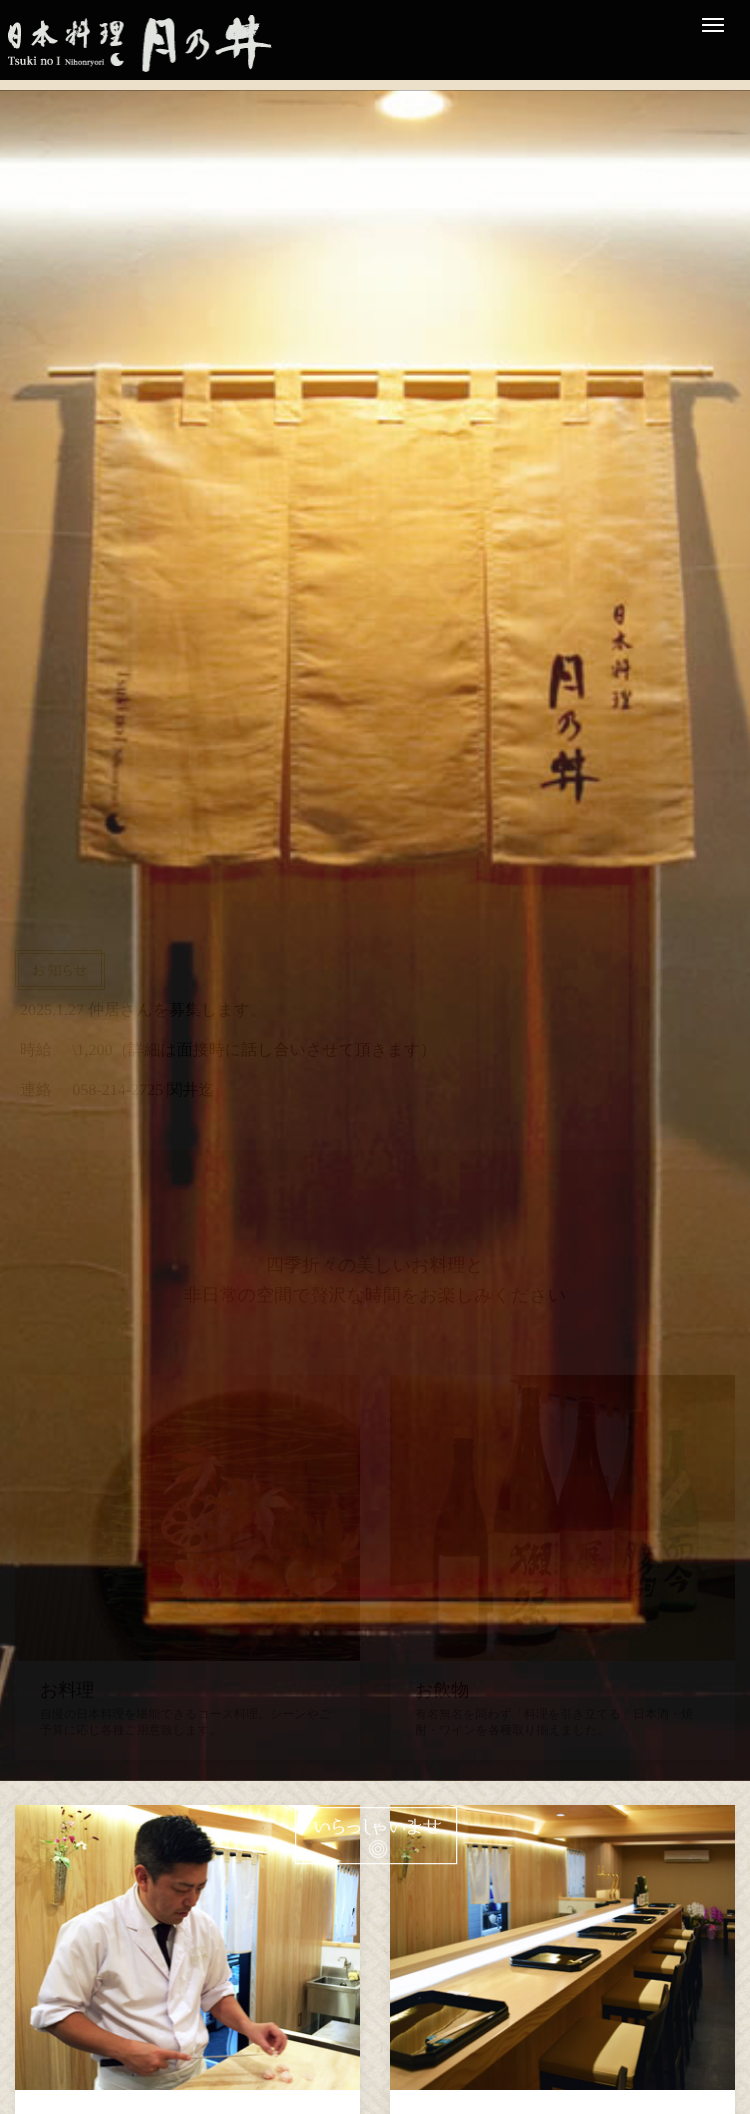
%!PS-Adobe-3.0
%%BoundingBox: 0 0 750 2114
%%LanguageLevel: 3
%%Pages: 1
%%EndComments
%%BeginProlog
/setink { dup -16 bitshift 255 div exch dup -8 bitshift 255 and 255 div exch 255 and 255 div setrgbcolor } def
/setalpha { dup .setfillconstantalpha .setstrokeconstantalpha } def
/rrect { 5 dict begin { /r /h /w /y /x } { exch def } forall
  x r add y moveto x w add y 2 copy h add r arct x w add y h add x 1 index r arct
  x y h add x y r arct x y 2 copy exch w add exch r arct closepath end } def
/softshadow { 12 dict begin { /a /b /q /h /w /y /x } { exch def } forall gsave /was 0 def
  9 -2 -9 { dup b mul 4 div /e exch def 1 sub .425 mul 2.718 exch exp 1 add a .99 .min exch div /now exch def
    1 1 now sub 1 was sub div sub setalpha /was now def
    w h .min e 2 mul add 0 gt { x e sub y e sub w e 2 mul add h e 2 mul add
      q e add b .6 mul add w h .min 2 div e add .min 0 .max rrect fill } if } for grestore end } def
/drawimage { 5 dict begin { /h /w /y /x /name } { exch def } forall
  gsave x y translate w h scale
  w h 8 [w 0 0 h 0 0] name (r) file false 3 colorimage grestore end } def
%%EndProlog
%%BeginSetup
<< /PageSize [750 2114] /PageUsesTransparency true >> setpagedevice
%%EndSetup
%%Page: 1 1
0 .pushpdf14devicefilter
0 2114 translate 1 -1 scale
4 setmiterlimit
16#FFFFFF setink
0 0 750 2114 rectfill
(img1.raw) 0 90 750 1060 drawimage
16#030303 setink
0 0 750 80 rectfill
16#EDE0CA setink
0 80 750 10 rectfill
(img2.raw) 8 15 264 57 drawimage
16#FFFFFF setink
702 18 22 2 1 rrect fill
702 24 22 2 1 rrect fill
702 30 22 2 1 rrect fill
(img5.raw) 15 950 90 40 drawimage
(img6.raw) 0 1150 750 964 drawimage
(img7.raw) 15 1375 345 286 drawimage
(img8.raw) 390 1375 345 286 drawimage
(img3.raw) 0 90 750 1691 drawimage
16#030303 setink
15 1807 345 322 0 5 0.06 softshadow
16#FFFFFF setink
15 1805 345 309 rectfill
(img9.raw) 15 1805 345 285 drawimage
16#030303 setink
390 1807 345 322 0 5 0.06 softshadow
16#FFFFFF setink
390 1805 345 309 rectfill
(img10.raw) 390 1805 345 285 drawimage
0.92 setalpha
295.5 1807.5 161 56 rectstroke
1 setalpha
(img4.raw) 314 1818 127 41 drawimage
.poppdf14devicefilter showpage
%%EOF
